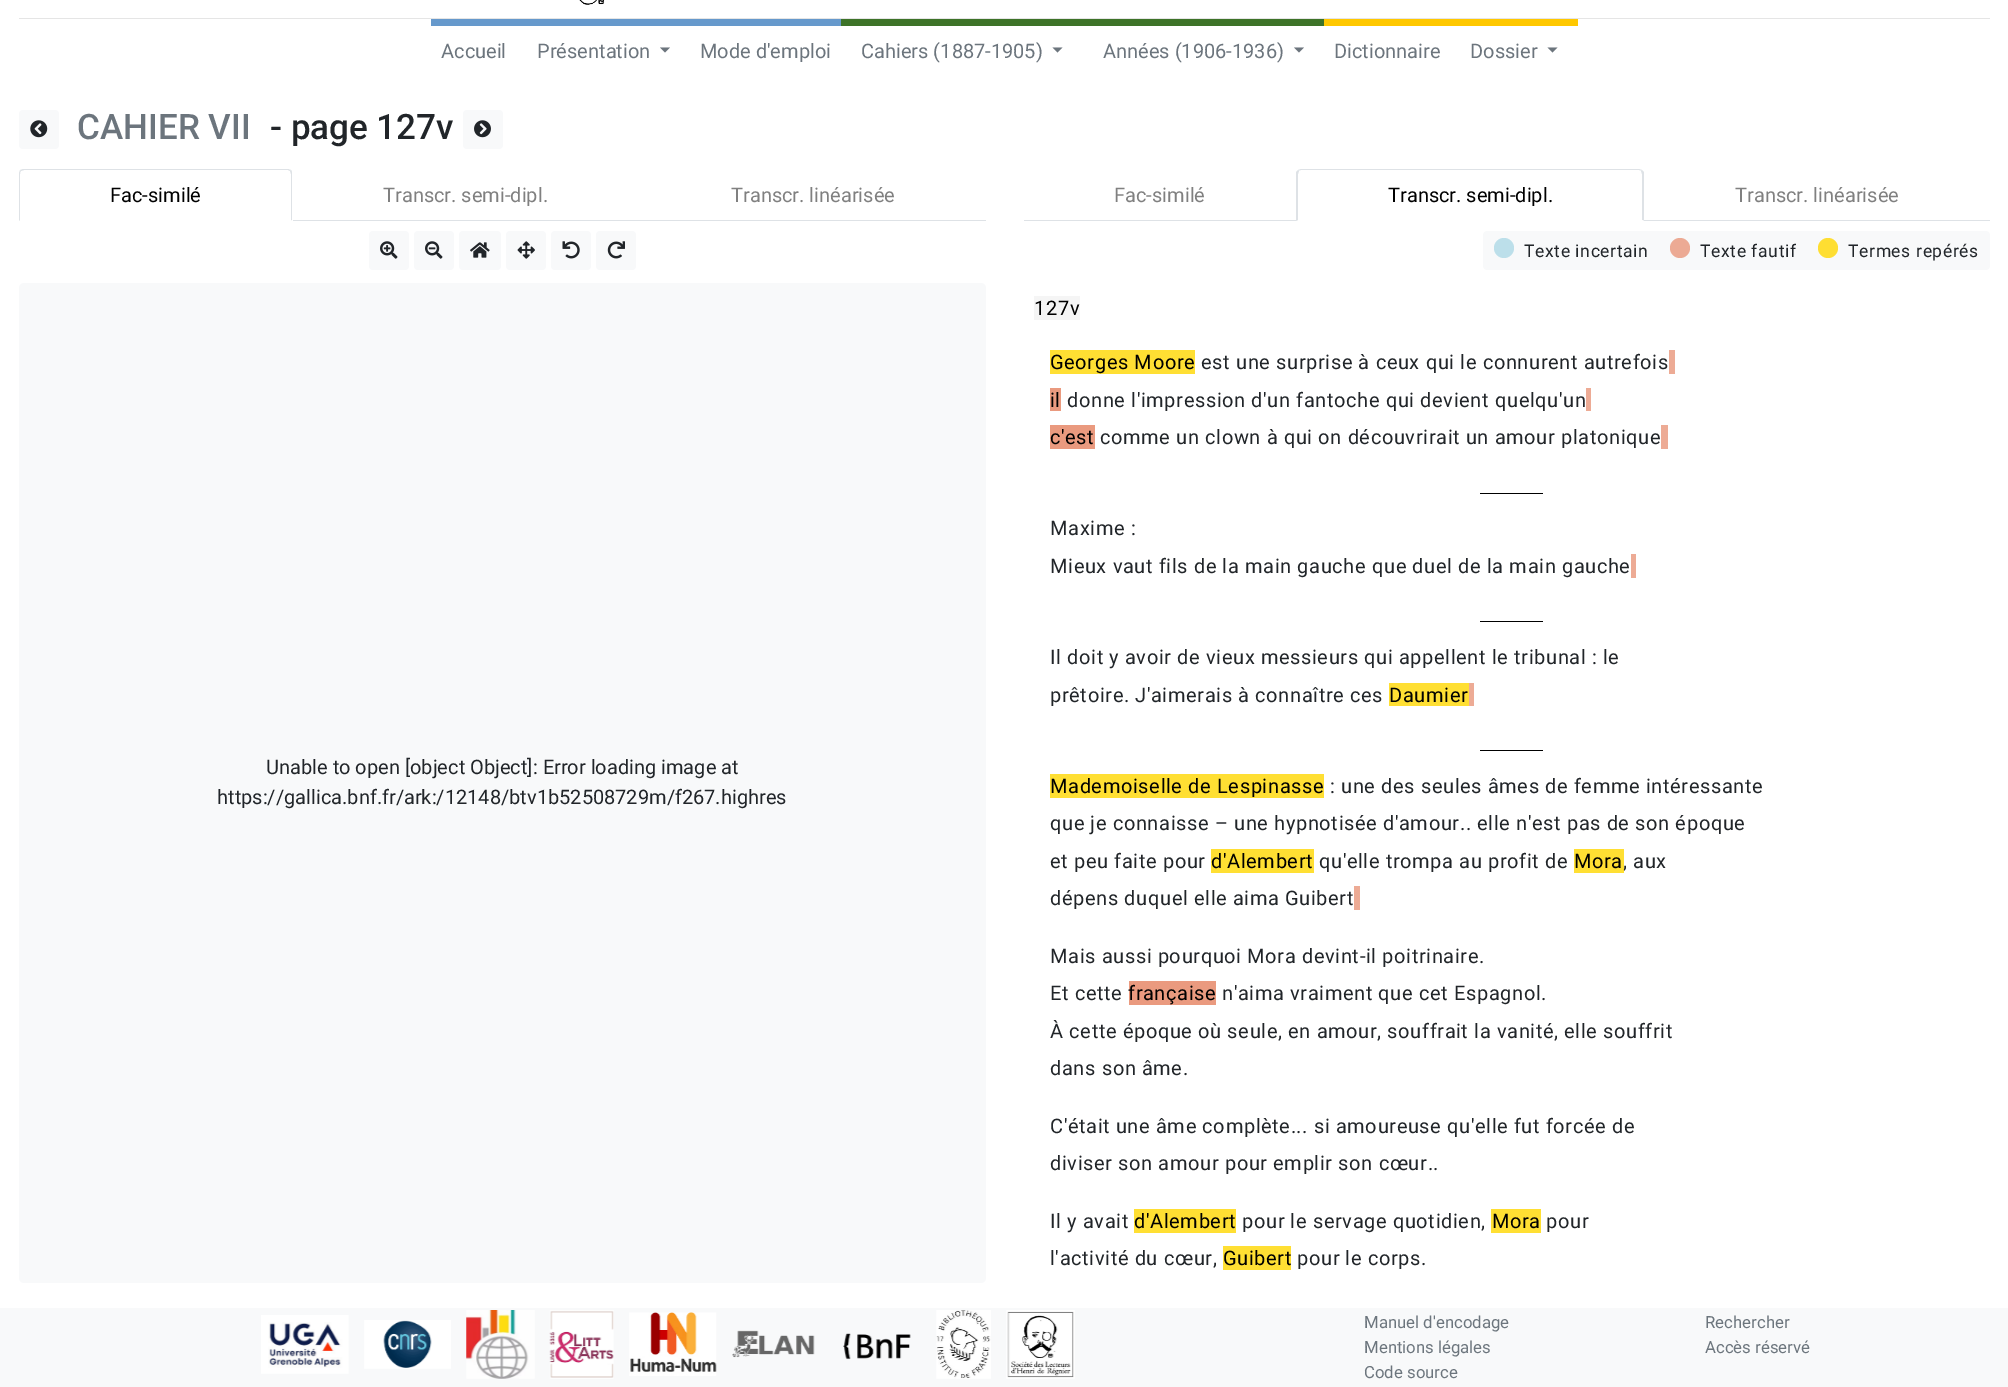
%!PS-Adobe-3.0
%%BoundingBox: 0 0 2008 1387
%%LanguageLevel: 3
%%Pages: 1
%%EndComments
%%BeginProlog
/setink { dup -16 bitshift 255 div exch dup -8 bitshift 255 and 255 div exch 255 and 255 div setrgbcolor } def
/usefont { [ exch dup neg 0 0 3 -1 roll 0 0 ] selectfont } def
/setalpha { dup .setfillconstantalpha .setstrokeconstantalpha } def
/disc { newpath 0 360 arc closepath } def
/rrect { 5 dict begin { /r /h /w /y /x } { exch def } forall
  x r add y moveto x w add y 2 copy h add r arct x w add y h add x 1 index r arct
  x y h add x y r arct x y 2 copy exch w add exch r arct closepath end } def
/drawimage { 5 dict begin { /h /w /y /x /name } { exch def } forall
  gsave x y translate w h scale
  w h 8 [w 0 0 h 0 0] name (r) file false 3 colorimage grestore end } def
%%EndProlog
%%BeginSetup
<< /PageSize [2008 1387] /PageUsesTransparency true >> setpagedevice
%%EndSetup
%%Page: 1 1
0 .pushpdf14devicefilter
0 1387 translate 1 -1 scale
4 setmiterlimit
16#FFFFFF setink
0 0 2008 1387 rectfill
16#E5E5E5 setink
19 18 1971 1 rectfill
(img1.raw) 579 0 26 5 drawimage
16#6699CC setink
431 19 85 7 rectfill
/Roboto-Regular 20 usefont
16#6C757D setink
441 58 moveto (Accueil) show
537 58 moveto (Présentation) show
660 47.5 moveto 670 47.5 lineto 665 52.5 lineto closepath fill
16#6699CC setink
516 19 325 7 rectfill
16#6C757D setink
700 58 moveto (Mode d'emploi) show
16#3D7328 setink
841 19 483 7 rectfill
16#6C757D setink
861 58 moveto (Cahiers \(1887-1905\)) show
1052.5 47.5 moveto 1062.5 47.5 lineto 1057.5 52.5 lineto closepath fill
1103 58 moveto (Années \(1906-1936\)) show
1294 47.5 moveto 1304 47.5 lineto 1299 52.5 lineto closepath fill
16#FFC800 setink
1324 19 254 7 rectfill
16#6C757D setink
1334 58 moveto (Dictionnaire) show
1470 58 moveto (Dossier) show
1547.5 47.5 moveto 1557.5 47.5 lineto 1552.5 52.5 lineto closepath fill
16#F8F9FA setink
19 110 40 39 4 rrect fill
(img2.raw) 30 120 18 18 drawimage
/Roboto-Medium 35 usefont
16#6C757D setink
77 139 moveto (CAHIER VII) show
16#212529 setink
270 139 moveto (- page 127v) show
16#F8F9FA setink
463 110 40 39 4 rrect fill
(img3.raw) 474 120 17 18 drawimage
16#DEE2E6 setink
293 220 693 1 rectfill
24 169 moveto 22 169 21 170 20 170 curveto 21 171 lineto 24 170 lineto 288 170 lineto 290 171 lineto 291 170 lineto 290 170 289 169 288 169 curveto closepath fill
292 221 moveto 292 174 lineto 292 173 292 171 291 170 curveto 290 171 lineto 291 174 lineto 291 220 lineto closepath fill
16#FFFFFF setink
292 221 moveto 19 221 lineto 20 220 lineto 291 220 lineto closepath fill
16#DEE2E6 setink
20 170 moveto 20 171 19 172 19 174 curveto 19 221 lineto 20 220 lineto 20 174 lineto 20 173 20 172 21 171 curveto closepath fill
/Roboto-Regular 20 usefont
16#000000 setink
110 202 moveto (Fac-similé) show
16#808080 setink
383 202 moveto (Transcr. semi-dipl.) show
731 202 moveto (Transcr. linéarisée) show
16#F8F9FA setink
369 231 40 39 4 rrect fill
(img4.raw) 380 241 18 18 drawimage
414 231 40 39 4 rrect fill
(img5.raw) 425 241 18 18 drawimage
459 231 42 39 4 rrect fill
(img6.raw) 470 242 20 16 drawimage
506 231 40 39 4 rrect fill
(img7.raw) 517 241 18 18 drawimage
551 231 40 39 4 rrect fill
(img8.raw) 562 241 18 18 drawimage
596 231 40 39 4 rrect fill
(img9.raw) 607 241 18 18 drawimage
19 283 967 1000 5 rrect fill
16#212529 setink
266 774 moveto (Unable to open [object Object]: Error loading image at) show
217 804 moveto (https://gallica.bnf.fr/ark:/12148/btv1b52508729m/f267.highres) show
16#DEE2E6 setink
1024 220 966 1 rectfill
16#808080 setink
1114 202 moveto (Fac-similé) show
16#FFFFFF setink
1301 169 moveto 1639 169 lineto 1642 169 1644 171 1644 174 curveto 1644 221 lineto 1296 221 lineto 1296 174 lineto 1296 171 1298 169 1301 169 curveto closepath fill
16#DEE2E6 setink
1301 169 moveto 1298 170 lineto 1299 171 lineto 1299 170 1300 170 1301 170 curveto 1639 170 lineto 1640 170 1641 170 1641 171 curveto 1642 170 lineto 1639 169 lineto closepath fill
1642 170 moveto 1644 172 lineto 1644 221 lineto 1642 220 lineto 1642 174 lineto 1641 171 lineto closepath fill
16#FFFFFF setink
1644 221 moveto 1296 221 lineto 1298 220 lineto 1642 220 lineto closepath fill
16#DEE2E6 setink
1296 172 moveto 1298 170 lineto 1299 171 lineto 1298 174 lineto 1298 220 lineto 1296 221 lineto closepath fill
16#000000 setink
1388 202 moveto (Transcr. semi-dipl.) show
16#808080 setink
1735 202 moveto (Transcr. linéarisée) show
16#F8F9FA setink
1487 231 moveto 1660 231 lineto 1660 270 lineto 1487 270 lineto 1485 270 1483 268 1483 266 curveto 1483 235 lineto 1483 233 1485 231 1487 231 curveto closepath fill
16#BCDFEA setink
1504 248 10 disc fill
/Roboto-Regular 17.5 usefont
16#212529 setink
1524 257 moveto 0.62 0 (Texte incertain) ashow
16#F8F9FA setink
1660 231 146 39 rectfill
16#ECAA94 setink
1680 248 10 disc fill
16#212529 setink
1700 257 moveto 0.62 0 (Texte fautif) ashow
16#F8F9FA setink
1806 231 moveto 1986 231 lineto 1988 231 1990 233 1990 235 curveto 1990 266 lineto 1990 268 1988 270 1986 270 curveto 1806 270 lineto closepath fill
16#FEDE32 setink
1828 248 10 disc fill
16#212529 setink
1848 257 moveto 0.62 0 (Termes repérés) ashow
16#F5F5F5 setink
1034 296 46 24 rectfill
/Roboto-Regular 20 usefont
16#000000 setink
1034 315 moveto 0.62 0 (127v) ashow
16#FFDF33 setink
1050 350 145 24 rectfill
16#000000 setink
1050 369 moveto 0.62 0 (Georges Moore) ashow
16#212529 setink
1201 369 moveto 0.62 0 (est une surprise à ceux qui le connurent autrefois) ashow
16#EDAB95 setink
1669 350 6 24 rectfill
16#EA9A7F setink
1050 388 11 23 rectfill
16#000000 setink
1050 407 moveto 0.62 0 (il) ashow
16#212529 setink
1067 407 moveto 0.62 0 (donne l'impression d'un fantoche qui devient quelqu'un) ashow
16#EDAB95 setink
1586 388 5 23 rectfill
16#EA9A7F setink
1050 425 45 24 rectfill
16#000000 setink
1050 444 moveto 0.62 0 (c'est) ashow
16#212529 setink
1100 444 moveto 0.62 0 (comme un clown à qui on découvrirait un amour platonique) ashow
16#EDAB95 setink
1661 425 7 24 rectfill
16#000000 setink
1480 493 63 1 rectfill
16#212529 setink
1050 535 moveto 0.62 0 (Maxime :) ashow
1050 573 moveto 0.62 0 (Mieux vaut fils de la main gauche que duel de la main gauche) ashow
16#EDAB95 setink
1631 554 5 24 rectfill
16#000000 setink
1480 621 63 1 rectfill
16#212529 setink
1050 664 moveto 0.62 0 (Il doit y avoir de vieux messieurs qui appellent le tribunal : le) ashow
1050 702 moveto 0.62 0 (prêtoire. J'aimerais à connaître ces) ashow
16#FFDF33 setink
1389 683 80 23 rectfill
16#000000 setink
1389 702 moveto 0.62 0 (Daumier) ashow
[
    [1469 683 5 23 16#EDAB95]
    [1480 750 63 1 16#000000]
    [1050 774 274 24 16#FFDF33]
] { aload pop setink rectfill } forall
16#000000 setink
1050 793 moveto 0.62 0 (Mademoiselle de Lespinasse) ashow
16#212529 setink
1330 793 moveto 0.62 0 (: une des seules âmes de femme intéressante) ashow
1050 830 moveto 0.62 0 (que je connaisse – une hypnotisée d'amour.. elle n'est pas de son époque) ashow
1050 868 moveto 0.62 0 (et peu faite pour) ashow
16#FFDF33 setink
1211 849 103 24 rectfill
16#000000 setink
1211 868 moveto 0.62 0 (d'Alembert) ashow
16#212529 setink
1319 868 moveto 0.62 0 (qu'elle trompa au profit de) ashow
1623 868 moveto 0.62 0 (, aux) ashow
0.8 setalpha
16#FFD700 setink
1574 849 50 24 rectfill
1 setalpha
16#000000 setink
1574 868 moveto 0.62 0 (Mora) ashow
16#212529 setink
1050 905 moveto 0.62 0 (dépens duquel elle aima Guibert) ashow
16#EDAB95 setink
1354 886 6 24 rectfill
16#212529 setink
1050 963 moveto 0.62 0 (Mais aussi pourquoi Mora devint-il poitrinaire.) ashow
1050 1000 moveto 0.62 0 (Et cette) ashow
16#EA9A7F setink
1129 981 87 24 rectfill
16#000000 setink
1128 1000 moveto 0.62 0 (française) ashow
16#212529 setink
1222 1000 moveto 0.62 0 (n'aima vraiment que cet Espagnol.) ashow
1050 1038 moveto 0.62 0 (À cette époque où seule, en amour, souffrait la vanité, elle souffrit) ashow
1050 1075 moveto 0.62 0 (dans son âme.) ashow
1050 1133 moveto 0.62 0 (C'était une âme complète... si amoureuse qu'elle fut forcée de) ashow
1050 1170 moveto 0.62 0 (diviser son amour pour emplir son cœur..) ashow
1050 1228 moveto 0.62 0 (Il y avait) ashow
16#FFDF33 setink
1134 1209 102 24 rectfill
16#000000 setink
1134 1228 moveto 0.62 0 (d'Alembert) ashow
16#212529 setink
1242 1228 moveto 0.62 0 (pour le servage quotidien,) ashow
16#FFDF33 setink
1491 1209 50 24 rectfill
16#000000 setink
1492 1228 moveto 0.62 0 (Mora) ashow
16#212529 setink
1546 1228 moveto 0.62 0 (pour) ashow
1050 1265 moveto 0.62 0 (l'activité du cœur,) ashow
16#FFDF33 setink
1223 1246 68 24 rectfill
16#000000 setink
1223 1265 moveto 0.62 0 (Guibert) ashow
16#212529 setink
1297 1265 moveto 0.62 0 (pour le corps.) ashow
16#F8F9FA setink
0 1308 2008 79 rectfill
(img10.raw) 261 1315 88 59 drawimage
(img11.raw) 364 1320 87 49 drawimage
(img12.raw) 466 1310 69 69 drawimage
(img13.raw) 549 1310 65 69 drawimage
(img14.raw) 629 1312 88 64 drawimage
(img15.raw) 732 1330 83 28 drawimage
(img16.raw) 843 1333 68 27 drawimage
(img17.raw) 936 1310 55 69 drawimage
(img18.raw) 1006 1310 69 69 drawimage
/Roboto-Regular 16.75 usefont
16#6C757D setink
[
    [(Manuel d'encodage) 1364 1328]
    [(Mentions légales) 1364 1353]
    [(Code source) 1364 1378]
    [(Rechercher) 1705 1328]
    [(Accès réservé) 1705 1353]
] { aload pop moveto show } forall
.poppdf14devicefilter showpage
%%EOF
